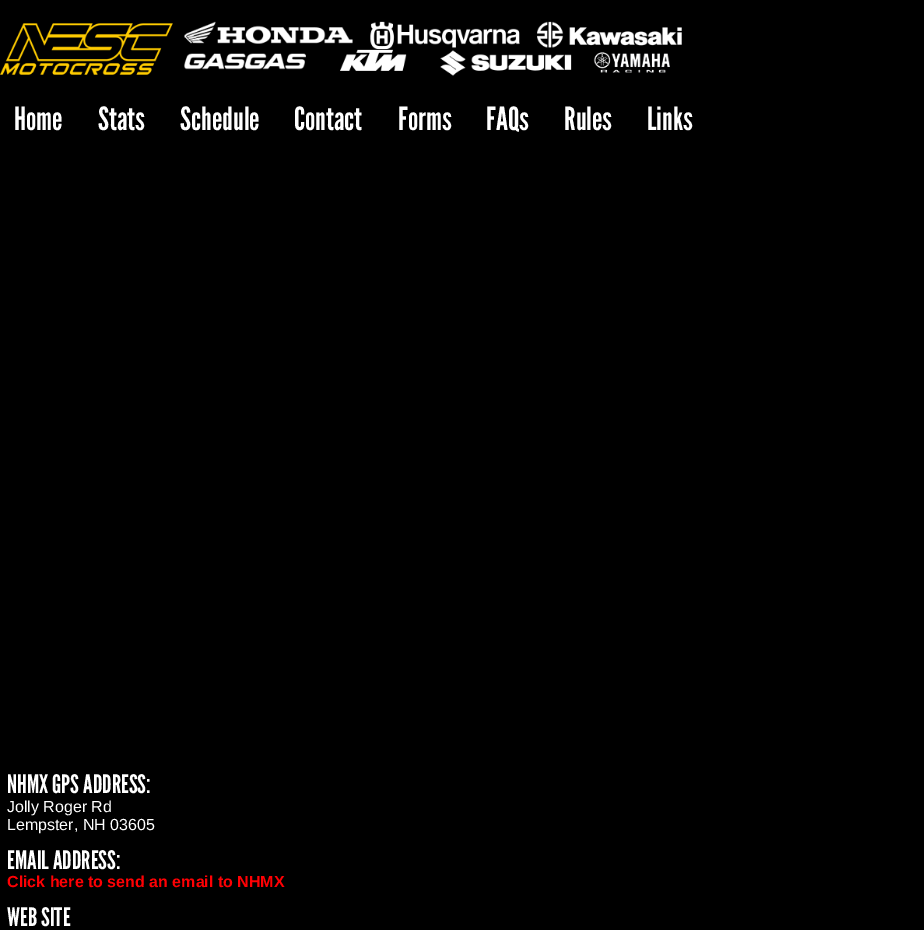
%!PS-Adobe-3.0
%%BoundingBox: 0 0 924 930
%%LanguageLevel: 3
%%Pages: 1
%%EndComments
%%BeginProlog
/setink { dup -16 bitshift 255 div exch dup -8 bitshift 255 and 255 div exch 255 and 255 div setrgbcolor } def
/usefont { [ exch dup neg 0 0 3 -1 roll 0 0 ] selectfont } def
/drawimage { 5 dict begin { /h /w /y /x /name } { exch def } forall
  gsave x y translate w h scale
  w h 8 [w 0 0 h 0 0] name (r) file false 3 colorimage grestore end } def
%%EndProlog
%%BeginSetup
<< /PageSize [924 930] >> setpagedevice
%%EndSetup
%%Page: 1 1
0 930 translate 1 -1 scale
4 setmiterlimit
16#000000 setink
0 0 924 930 rectfill
(img1.raw) 0 21 682 55 drawimage
/LeagueGothic-Regular 32 usefont
16#FFFFFF setink
[
    [(Home) 14 130]
    [(Stats) 98 130]
    [(Schedule) 180 130]
    [(Contact) 294 130]
    [(Forms) 398 130]
    [(FAQs) 486 130]
    [(Rules) 564 130]
    [(Links) 647 130]
] { aload pop moveto show } forall
/LeagueGothic-Regular 25.5 usefont
7 793 moveto (NHMX GPS ADDRESS:) show
/LiberationSans-Regular 16 usefont
7 812 moveto (Jolly Roger Rd) show
7 830 moveto (Lempster, NH 03605) show
/LeagueGothic-Regular 25.5 usefont
7 869 moveto (EMAIL ADDRESS:) show
/LiberationSans-Bold 16 usefont
16#FF0004 setink
7 887 moveto (Click here to send an email to NHMX) show
/LeagueGothic-Regular 25.5 usefont
16#FFFFFF setink
7 926 moveto (WEB SITE) show
showpage
%%EOF
